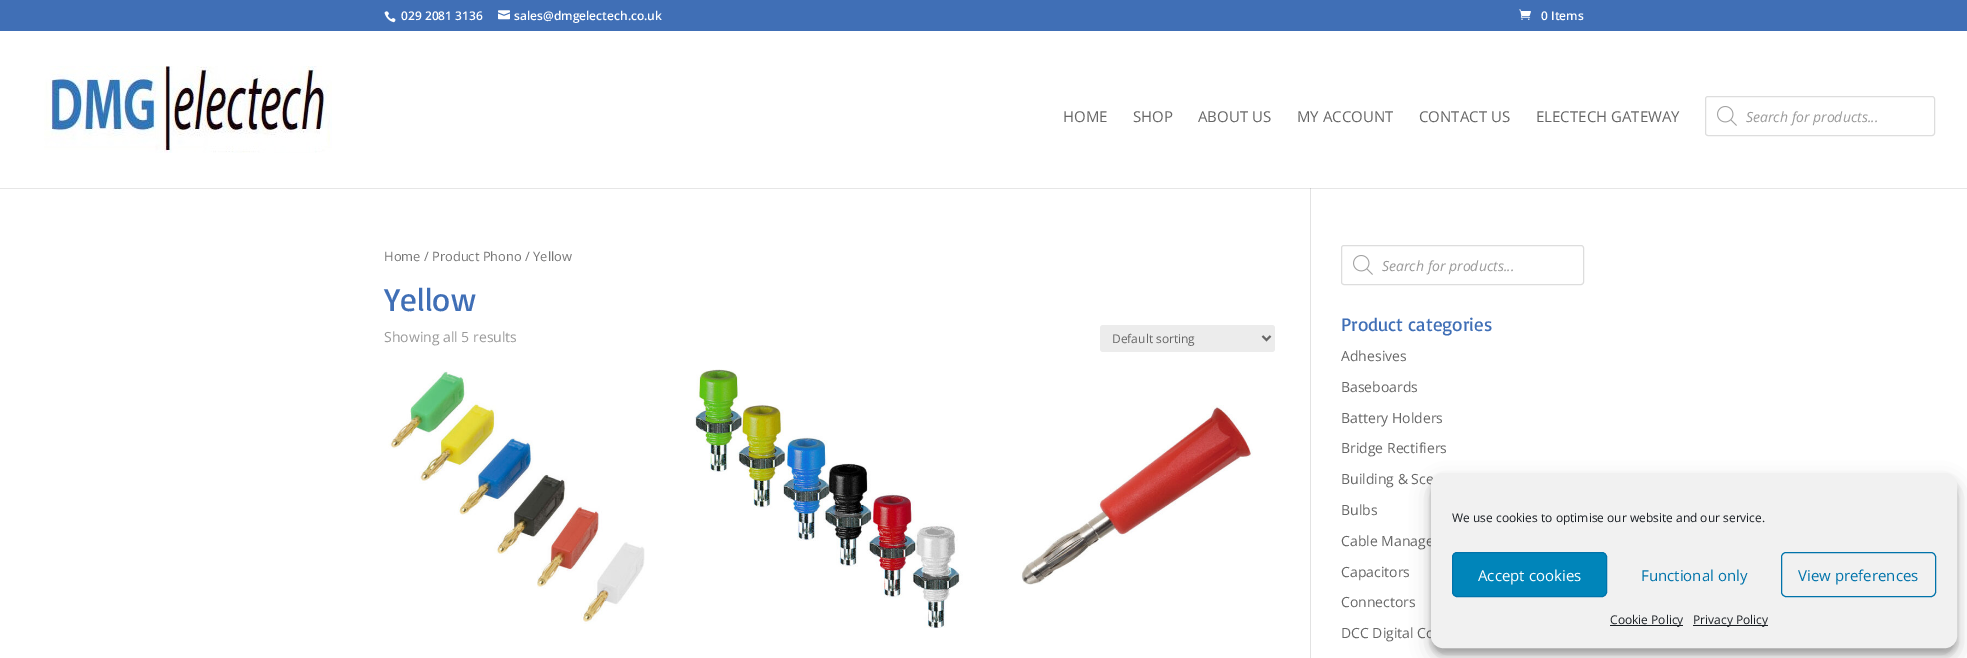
%!PS-Adobe-3.0
%%BoundingBox: 0 0 1967 658
%%LanguageLevel: 3
%%Pages: 1
%%EndComments
%%BeginProlog
/setink { dup -16 bitshift 255 div exch dup -8 bitshift 255 and 255 div exch 255 and 255 div setrgbcolor } def
/usefont { [ exch dup neg 0 0 3 -1 roll 0 0 ] selectfont } def
/setalpha { dup .setfillconstantalpha .setstrokeconstantalpha } def
/rrect { 5 dict begin { /r /h /w /y /x } { exch def } forall
  x r add y moveto x w add y 2 copy h add r arct x w add y h add x 1 index r arct
  x y h add x y r arct x y 2 copy exch w add exch r arct closepath end } def
/softshadow { 12 dict begin { /a /b /q /h /w /y /x } { exch def } forall gsave /was 0 def
  9 -2 -9 { dup b mul 4 div /e exch def 1 sub .425 mul 2.718 exch exp 1 add a .99 .min exch div /now exch def
    1 1 now sub 1 was sub div sub setalpha /was now def
    w h .min e 2 mul add 0 gt { x e sub y e sub w e 2 mul add h e 2 mul add
      q e add b .6 mul add w h .min 2 div e add .min 0 .max rrect fill } if } for grestore end } def
/drawimage { 5 dict begin { /h /w /y /x /name } { exch def } forall
  gsave x y translate w h scale
  w h 8 [w 0 0 h 0 0] name (r) file false 3 colorimage grestore end } def
%%EndProlog
%%BeginSetup
<< /PageSize [1967 658] /PageUsesTransparency true >> setpagedevice
%%EndSetup
%%Page: 1 1
0 .pushpdf14devicefilter
0 658 translate 1 -1 scale
4 setmiterlimit
16#FFFFFF setink
0 0 1967 658 rectfill
16#E6E6E6 setink
0 188 1967 1 rectfill
16#406FB6 setink
0 0 1967 31 rectfill
(img1.raw) 384 11 12 12 drawimage
/OpenSans-SemiBold 12 usefont
16#FFFFFF setink
401 20 moveto (029 2081 3136) show
(img2.raw) 498 10 12 10 drawimage
514 20 moveto (sales@dmgelectech.co.uk) show
(img3.raw) 1519 9 12 11 drawimage
1541 20 moveto (0 Items) show
16#E2E2E2 setink
1310 187 1 471 rectfill
16#FFFFFF setink
1310 187 1 1 rectfill
(img4.raw) 44 66 288 87 drawimage
/OpenSans-Regular 15 usefont
16#666666 setink
[
    [(HOME) 1063 122]
    [(SHOP) 1133 122]
    [(ABOUT US) 1198 122]
    [(MY ACCOUNT) 1297 122]
    [(CONTACT US) 1419 122]
    [(ELECTECH GATEWAY) 1536 122]
] { aload pop moveto show } forall
16#DDDDDD setink
1705.5 96.5 229 39 2.5 rrect stroke
(img5.raw) 1717 106 20 20 drawimage
/OpenSans-Italic 14 usefont
16#999999 setink
1746 122 moveto (Search for products...) show
16#CBCBCB setink
1310 188 1 1 rectfill
/OpenSans-Regular 12.9 usefont
16#767676 setink
384 261 moveto (Home / Product Phono / Yellow) show
/Basic-Regular 33 usefont
16#406FB6 setink
384 311 moveto (Yellow) show
/OpenSans-Regular 14 usefont
16#999999 setink
384 342 moveto (Showing all 5 results) show
16#ECECEC setink
1100 325 175 27 3 rrect fill
16#666666 setink
2 setlinewidth
1262.5 336 moveto 1266.5 340 lineto 1270.5 336 lineto stroke
/OpenSans-Regular 12 usefont
1112 343 moveto (Default sorting) show
(img6.raw) 388 370 257 254 drawimage
(img7.raw) 694 369 269 259 drawimage
(img8.raw) 1020 405 233 180 drawimage
16#DDDDDD setink
1 setlinewidth
1341.5 245.5 242 39 2.5 rrect stroke
(img5.raw) 1353 255 20 20 drawimage
/OpenSans-Italic 14 usefont
16#999999 setink
1382 271 moveto (Search for products...) show
/Basic-Regular 19 usefont
16#406FB6 setink
1341 331 moveto (Product categories) show
/OpenSans-Regular 14 usefont
16#666666 setink
[
    [(Adhesives) 1341 361]
    [(Baseboards) 1341 392]
    [(Battery Holders) 1341 423]
    [(Bridge Rectifiers) 1341 453]
    [(Building & Sce) 1341 484]
    [(Bulbs) 1341 515]
    [(Cable Manage) 1341 546]
    [(Capacitors) 1341 577]
    [(Connectors) 1341 607]
    [(DCC Digital Co) 1341 638]
] { aload pop moveto show } forall
16#000000 setink
1431 479 526 175 12 3 0.23 softshadow
1431 483 526 175 12 10 0.19 softshadow
16#F1F1F1 setink
1431.5 473.5 525 174 11.5 rrect gsave fill grestore
stroke
/OpenSans-Regular 12 usefont
16#191E23 setink
1452 522 moveto (We use cookies to optimise our website and our service.) show
16#0085BA setink
1452.5 552.5 154 44 4.5 rrect gsave fill grestore
16#0073AA setink
stroke
/OpenSans-Regular 15 usefont
16#FFFFFF setink
1478 581 moveto (Accept cookies) show
16#0073AA setink
1641 581 moveto (Functional only) show
1781.5 552.5 154 44 4.5 rrect stroke
1798 581 moveto (View preferences) show
16#191E23 setink
1610 625 73 1 rectfill
/OpenSans-Regular 12 usefont
1610 624 moveto (Cookie Policy) show
1693 625 75 1 rectfill
1693 624 moveto (Privacy Policy) show
.poppdf14devicefilter showpage
%%EOF
